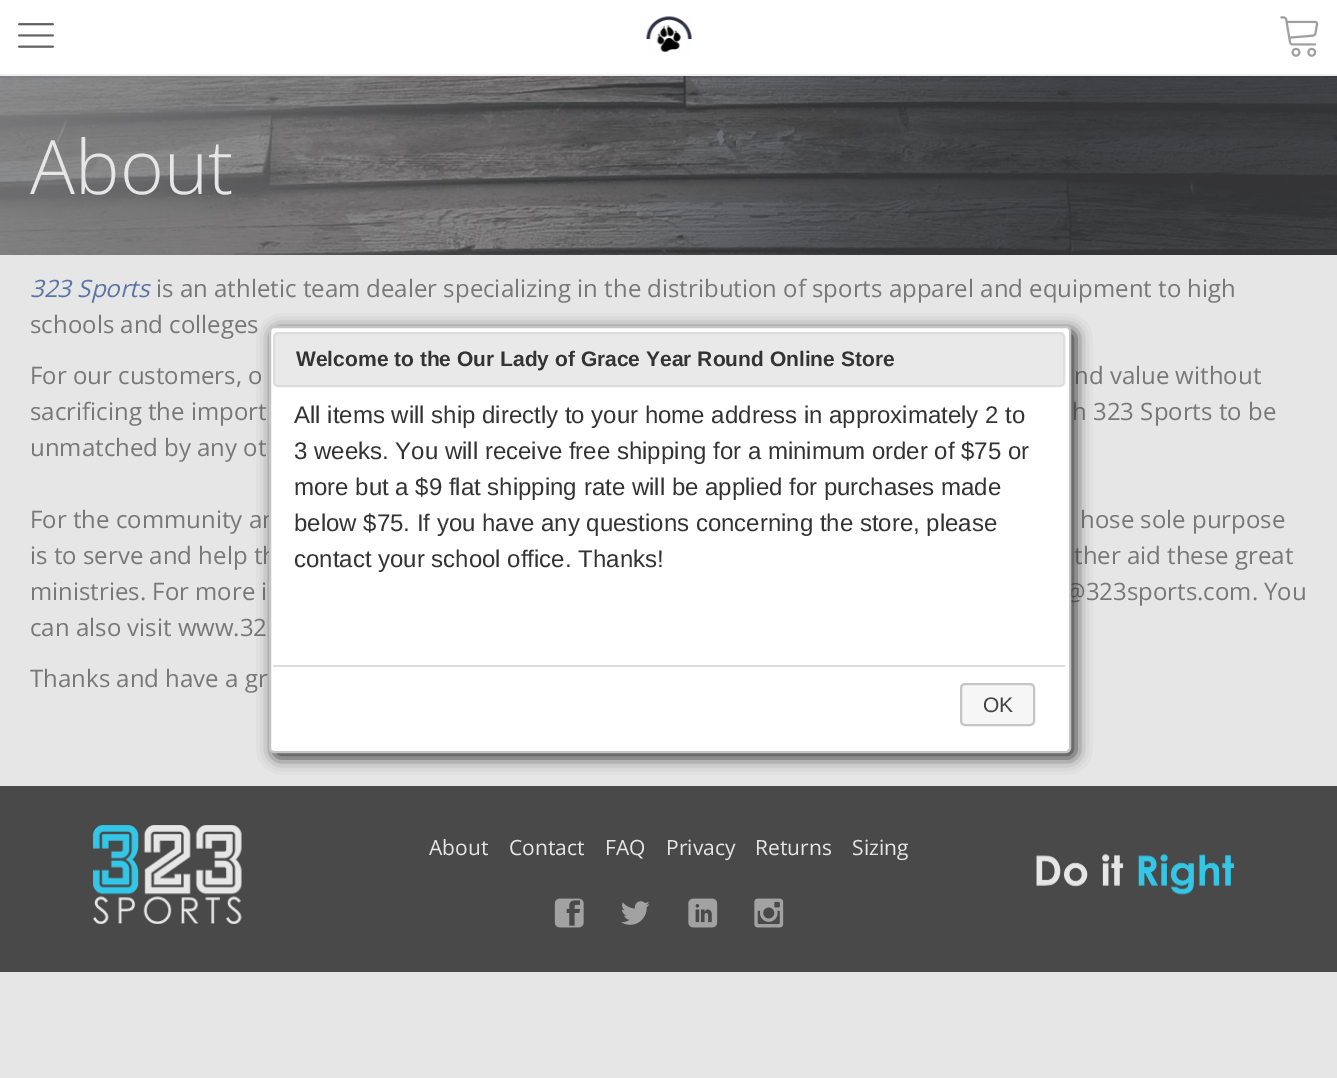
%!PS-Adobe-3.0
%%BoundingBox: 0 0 1337 1078
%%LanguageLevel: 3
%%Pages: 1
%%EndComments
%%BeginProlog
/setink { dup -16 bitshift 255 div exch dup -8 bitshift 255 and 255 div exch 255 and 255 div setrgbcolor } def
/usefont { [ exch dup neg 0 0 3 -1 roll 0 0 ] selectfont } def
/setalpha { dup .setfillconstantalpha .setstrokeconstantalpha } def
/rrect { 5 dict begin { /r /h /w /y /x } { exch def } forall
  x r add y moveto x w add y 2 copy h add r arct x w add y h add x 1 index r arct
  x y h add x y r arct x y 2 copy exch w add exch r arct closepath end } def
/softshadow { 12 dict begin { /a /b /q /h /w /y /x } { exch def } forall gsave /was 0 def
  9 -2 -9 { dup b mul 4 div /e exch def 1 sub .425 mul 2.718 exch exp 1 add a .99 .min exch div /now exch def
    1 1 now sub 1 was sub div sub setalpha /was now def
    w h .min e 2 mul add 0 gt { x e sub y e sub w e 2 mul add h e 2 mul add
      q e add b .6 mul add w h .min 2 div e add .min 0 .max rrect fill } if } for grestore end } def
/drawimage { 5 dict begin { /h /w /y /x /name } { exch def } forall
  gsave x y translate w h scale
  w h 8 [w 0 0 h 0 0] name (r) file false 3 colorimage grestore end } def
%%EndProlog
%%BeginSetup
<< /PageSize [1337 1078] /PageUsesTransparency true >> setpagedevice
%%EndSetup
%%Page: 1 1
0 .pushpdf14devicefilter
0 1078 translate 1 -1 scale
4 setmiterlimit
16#E6E6E6 setink
0 0 1337 1078 rectfill
(img4.raw) 0 76 1337 179 drawimage
16#000000 setink
0 2 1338 75 0 1.5 0.08 softshadow
16#FFFFFF setink
0 0 1337 74 rectfill
16#F0F0F0 setink
0 74 1337 2 rectfill
(img1.raw) 18 23 36 25 drawimage
(img2.raw) 646 16 46 37 drawimage
(img3.raw) 1280 16 39 41 drawimage
/OpenSans-Light 75 usefont
16#E6E6E6 setink
30 194 moveto (About) show
/OpenSans-Italic 24 usefont
16#5775A5 setink
30 297 moveto (323 Sports) show
/OpenSans-Regular 24 usefont
16#787878 setink
[
    [(is an athletic team dealer specializing in the distribution of sports apparel and equipment to high) 156 297]
    [(schools and colleges) 30 333]
    [(For our customers, o) 30 384]
    [(nd value without) 1074 384]
    [(sacrificing the import) 30 420]
    [(h 323 Sports to be) 1072 420]
    [(unmatched by any ot) 30 456]
    [(For the community an) 30 528]
    [(hose sole purpose) 1080 528]
    [(is to serve and help th) 30 564]
    [(ther aid these great) 1074 564]
    [(ministries. For more i) 30 600]
    [(@323sports.com. You) 1064 600]
    [(can also visit www.32) 30 636]
    [(Thanks and have a gr) 30 687]
] { aload pop moveto show } forall
16#333333 setink
273 330 803 428 5 7.5 1 softshadow
16#FFFFFF setink
270 327 800 425 4 rrect gsave fill grestore
16#C5C5C5 setink
2 setlinewidth
stroke
16#E9E9E9 setink
274 333 790 53 4 rrect gsave fill grestore
16#DDDDDD setink
stroke
/LiberationSans-Bold 21 usefont
16#333333 setink
296 366 moveto (Welcome to the Our Lady of Grace Year Round Online Store) show
/LiberationSans-Regular 24 usefont
[
    [(All items will ship directly to your home address in approximately 2 to) 294 423]
    [(3 weeks. You will receive free shipping for a minimum order of $75 or) 294 459]
    [(more but a $9 flat shipping rate will be applied for purchases made) 294 495]
    [(below $75. If you have any questions concerning the store, please) 294 531]
    [(contact your school office. Thanks!) 294 567]
] { aload pop moveto show } forall
16#DDDDDD setink
273 665 792 2 rectfill
16#F6F6F6 setink
961 684 73 41 4 rrect gsave fill grestore
16#C5C5C5 setink
stroke
/LiberationSans-Regular 21 usefont
16#454545 setink
983 712 moveto (OK) show
16#494949 setink
0 786 1337 186 rectfill
(img5.raw) 93 825 149 99 drawimage
/OpenSans-Regular 21 usefont
16#E6E6E6 setink
[
    [(About) 429 855]
    [(Contact) 509 855]
    [(FAQ) 605 855]
    [(Privacy) 666 855]
    [(Returns) 755 855]
    [(Sizing) 852 855]
] { aload pop moveto show } forall
(img6.raw) 554 898 30 30 drawimage
(img7.raw) 621 901 29 24 drawimage
(img8.raw) 688 898 30 30 drawimage
(img9.raw) 754 898 30 30 drawimage
(img10.raw) 1036 854 198 41 drawimage
.poppdf14devicefilter showpage
%%EOF
